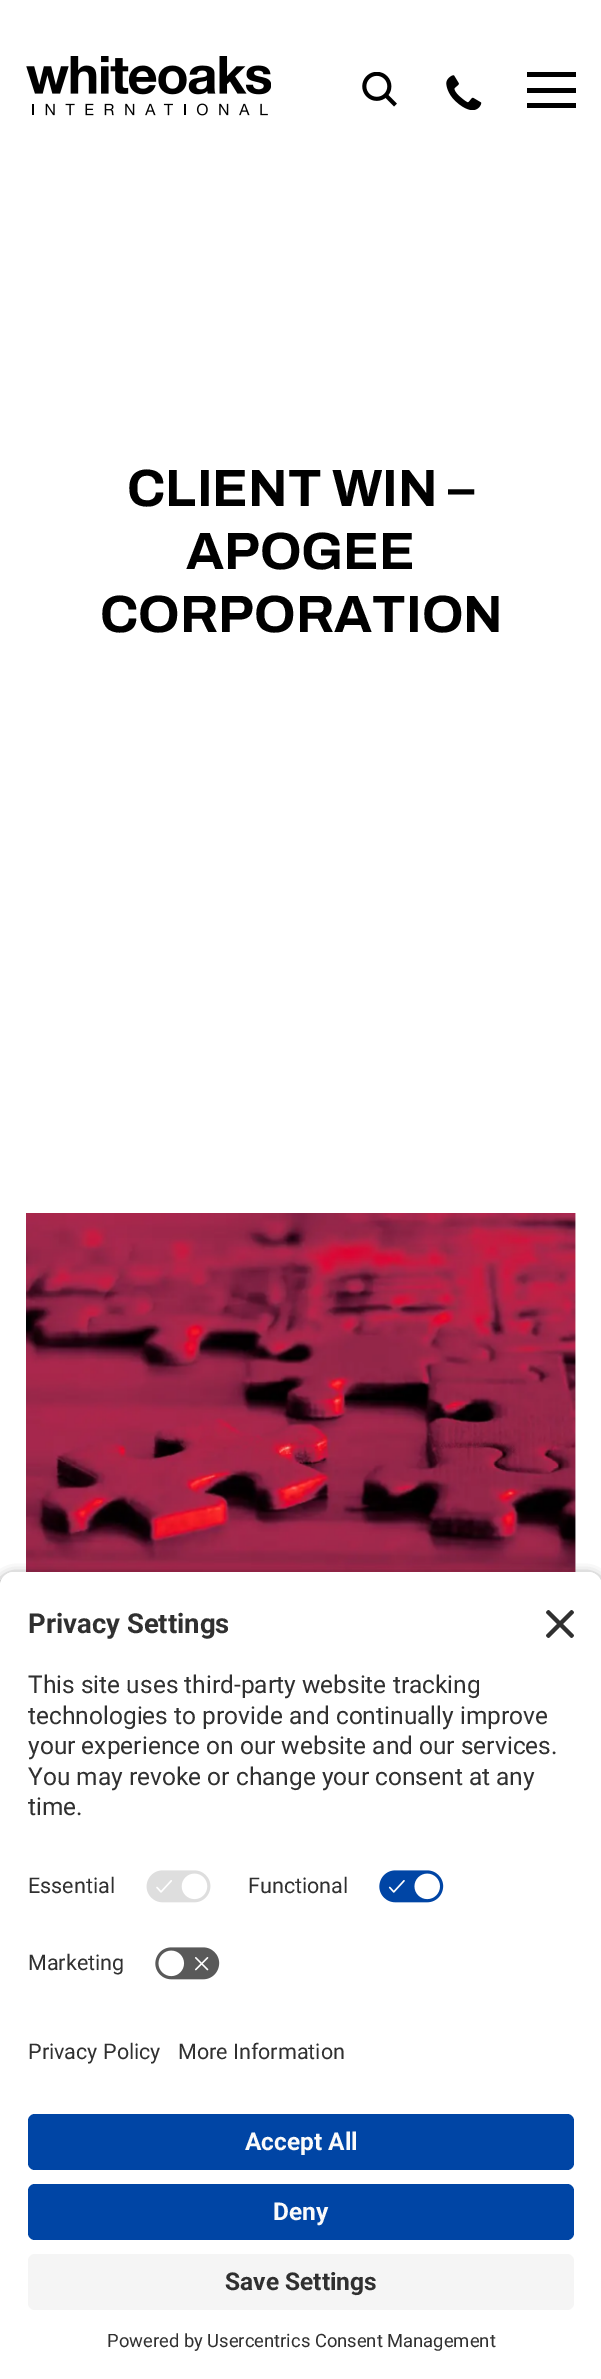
%!PS-Adobe-3.0
%%BoundingBox: 0 0 601 2379
%%LanguageLevel: 3
%%Pages: 1
%%EndComments
%%BeginProlog
/setink { dup -16 bitshift 255 div exch dup -8 bitshift 255 and 255 div exch 255 and 255 div setrgbcolor } def
/usefont { [ exch dup neg 0 0 3 -1 roll 0 0 ] selectfont } def
/setalpha { dup .setfillconstantalpha .setstrokeconstantalpha } def
/rrect { 5 dict begin { /r /h /w /y /x } { exch def } forall
  x r add y moveto x w add y 2 copy h add r arct x w add y h add x 1 index r arct
  x y h add x y r arct x y 2 copy exch w add exch r arct closepath end } def
/softshadow { 12 dict begin { /a /b /q /h /w /y /x } { exch def } forall gsave /was 0 def
  9 -2 -9 { dup b mul 4 div /e exch def 1 sub .425 mul 2.718 exch exp 1 add a .99 .min exch div /now exch def
    1 1 now sub 1 was sub div sub setalpha /was now def
    w h .min e 2 mul add 0 gt { x e sub y e sub w e 2 mul add h e 2 mul add
      q e add b .6 mul add w h .min 2 div e add .min 0 .max rrect fill } if } for grestore end } def
/drawimage { 5 dict begin { /h /w /y /x /name } { exch def } forall
  gsave x y translate w h scale
  w h 8 [w 0 0 h 0 0] name (r) file false 3 colorimage grestore end } def
%%EndProlog
%%BeginSetup
<< /PageSize [601 2379] /PageUsesTransparency true >> setpagedevice
%%EndSetup
%%Page: 1 1
0 .pushpdf14devicefilter
0 2379 translate 1 -1 scale
4 setmiterlimit
16#FFFFFF setink
0 0 601 2379 rectfill
(img1.raw) 26 56 245 60 drawimage
(img2.raw) 362 72 35 35 drawimage
(img3.raw) 446 75 36 35 drawimage
16#000000 setink
527 72 moveto 527 77 lineto 576 77 lineto 576 72 lineto closepath 527 88 moveto 576 88 lineto 576 93 lineto 527 93 lineto closepath 576 108 moveto 527 108 lineto 527 103 lineto 576 103 lineto closepath eofill
/Archivo-Bold 52.5 usefont
[
    [(CLIENT WIN –) 127 506]
    [(APOGEE) 186 569]
    [(CORPORATION) 100 632]
] { aload pop moveto show } forall
(img4.raw) 26 1213 550 359 drawimage
0 1577 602 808 14 6 0.8 softshadow
16#FFFFFF setink
14 1572 moveto 588 1572 lineto 595.5 1572 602 1578.5 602 1586 curveto 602 2013 lineto 0 2013 lineto 0 1586 lineto 0 1578.5 6.5 1572 14 1572 curveto closepath fill
14 1572 moveto 588 1572 lineto 595.5 1572 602 1578.5 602 1586 curveto 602 1859 lineto 0 1859 lineto 0 1586 lineto 0 1578.5 6.5 1572 14 1572 curveto closepath fill
/Roboto-Bold 27.5 usefont
16#303030 setink
28 1633 moveto (Privacy Settings) show
(img5.raw) 546 1610 28 28 drawimage
/Roboto-Regular 24.5 usefont
[
    [(This site uses third-party website tracking) 28 1693]
    [(technologies to provide and continually improve) 28 1724]
    [(your experience on our website and our services.) 28 1754]
    [(You may revoke or change your consent at any) 28 1785]
    [(time.) 28 1815]
] { aload pop moveto show } forall
/Roboto-Regular 21.5 usefont
28 1893 moveto (Essential) show
(img6.raw) 146 1870 65 33 drawimage
248 1893 moveto (Functional) show
(img7.raw) 379 1870 65 33 drawimage
28 1970 moveto (Marketing) show
(img8.raw) 155 1947 65 33 drawimage
16#FFFFFF setink
0 2013 601 366 rectfill
16#303030 setink
28 2059 moveto (Privacy Policy) show
178 2059 moveto (More Information) show
16#0045A5 setink
28 2114 546 56 7 rrect fill
/Roboto-Bold 24.5 usefont
16#FAFAFA setink
245 2150 moveto (Accept All) show
16#0045A5 setink
28 2184 546 56 7 rrect fill
16#FAFAFA setink
273 2220 moveto (Deny) show
16#F5F5F5 setink
28 2254 546 56 7 rrect fill
16#303030 setink
225 2290 moveto (Save Settings) show
/Roboto-Regular 18.4 usefont
107 2347 moveto (Powered by Usercentrics Consent Management) show
.poppdf14devicefilter showpage
%%EOF
